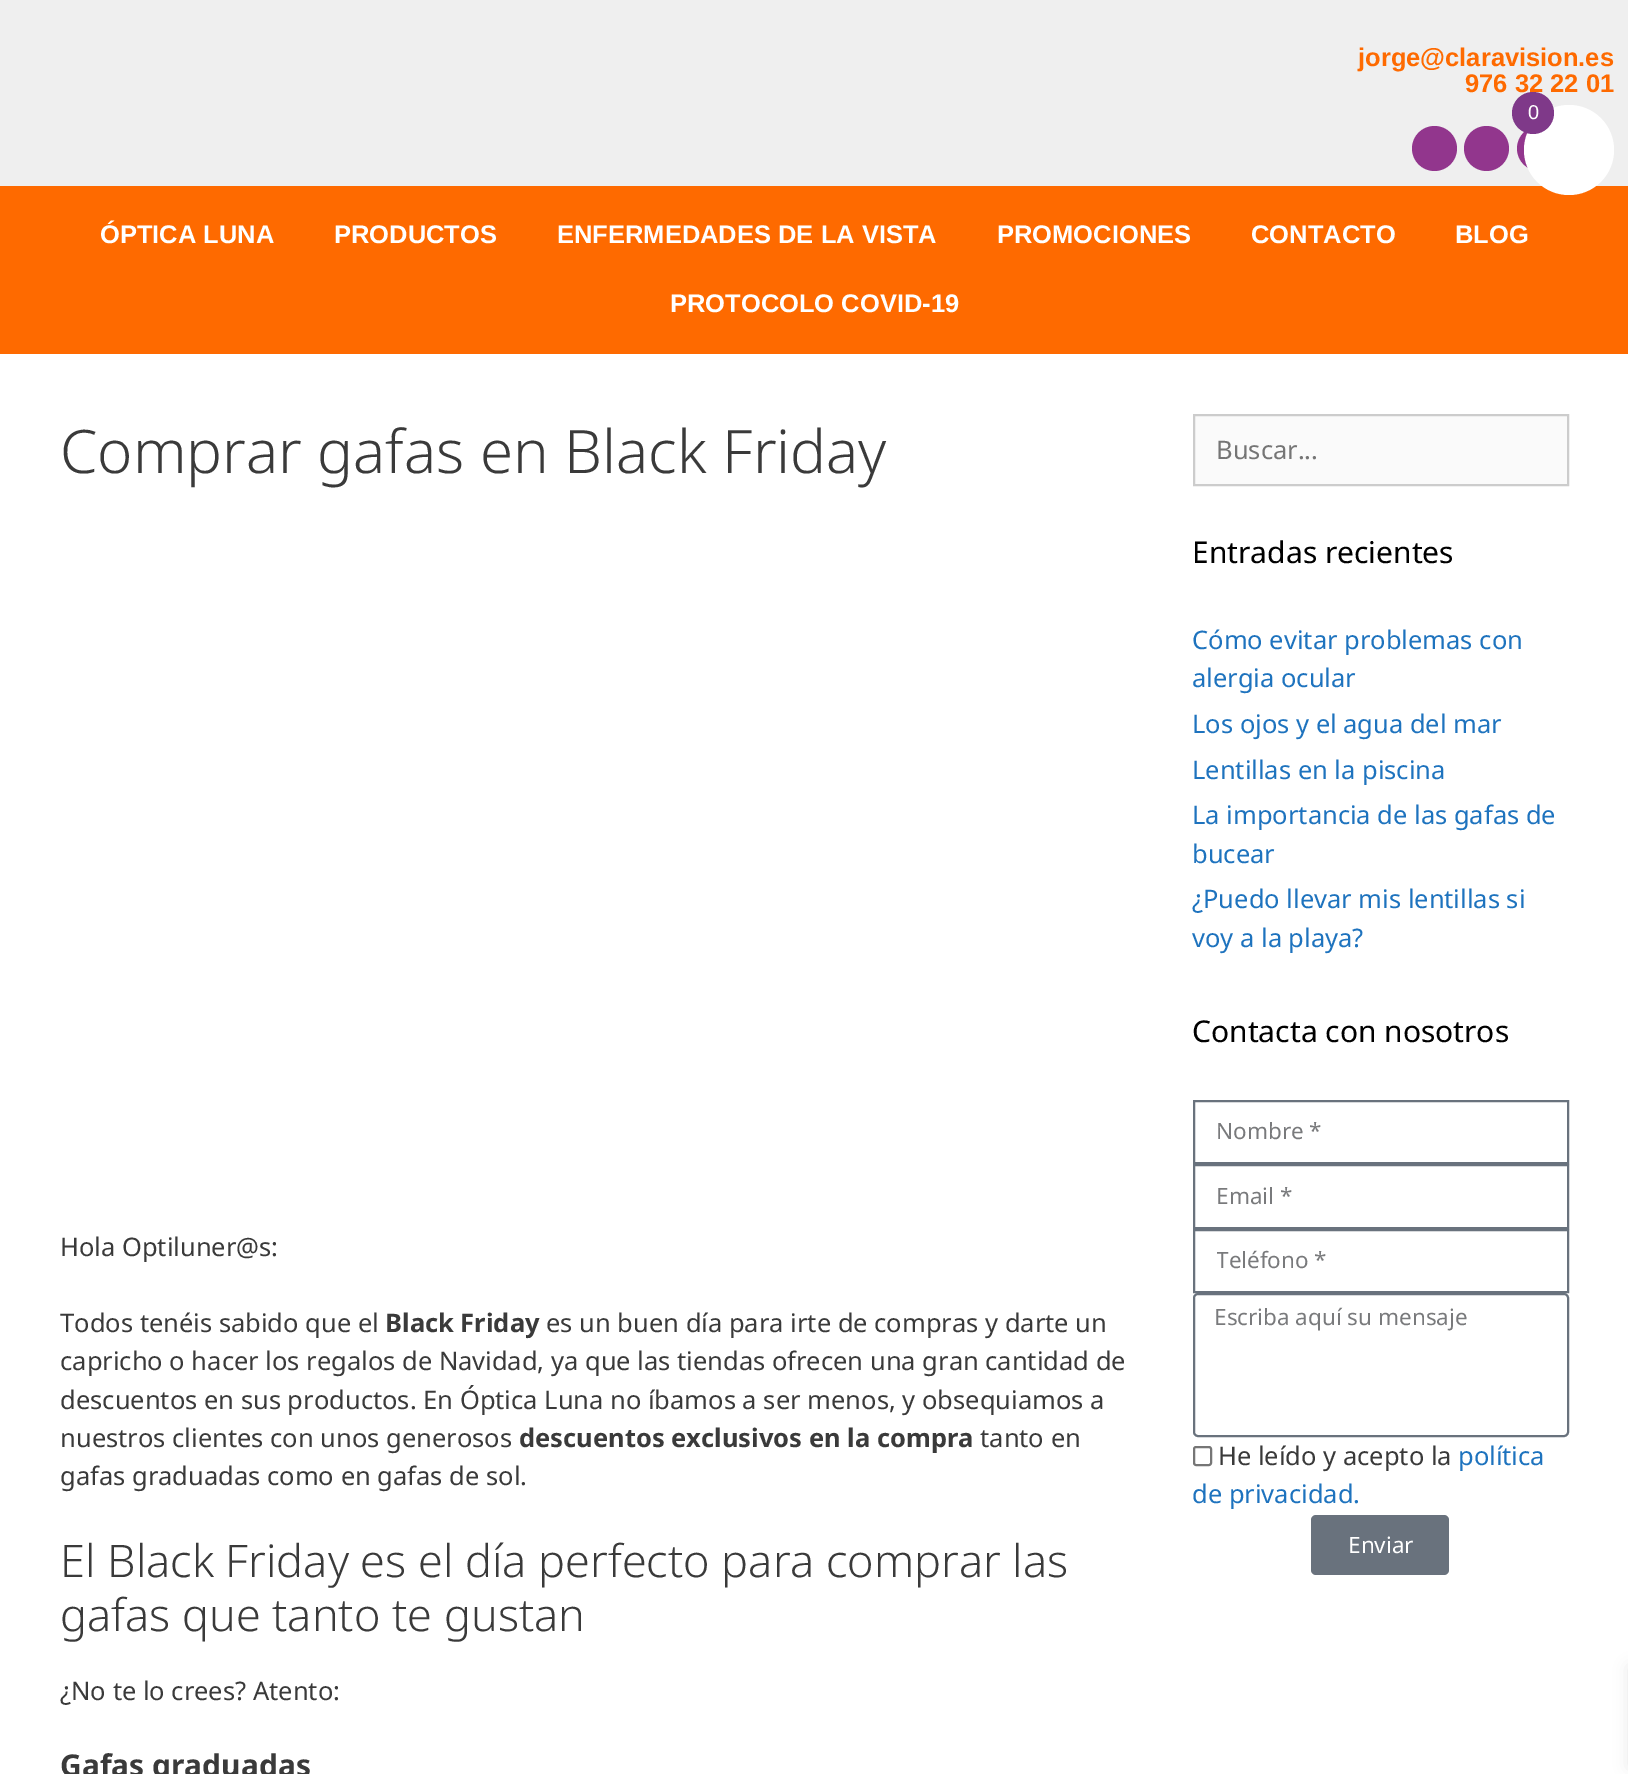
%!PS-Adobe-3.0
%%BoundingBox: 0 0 1628 1774
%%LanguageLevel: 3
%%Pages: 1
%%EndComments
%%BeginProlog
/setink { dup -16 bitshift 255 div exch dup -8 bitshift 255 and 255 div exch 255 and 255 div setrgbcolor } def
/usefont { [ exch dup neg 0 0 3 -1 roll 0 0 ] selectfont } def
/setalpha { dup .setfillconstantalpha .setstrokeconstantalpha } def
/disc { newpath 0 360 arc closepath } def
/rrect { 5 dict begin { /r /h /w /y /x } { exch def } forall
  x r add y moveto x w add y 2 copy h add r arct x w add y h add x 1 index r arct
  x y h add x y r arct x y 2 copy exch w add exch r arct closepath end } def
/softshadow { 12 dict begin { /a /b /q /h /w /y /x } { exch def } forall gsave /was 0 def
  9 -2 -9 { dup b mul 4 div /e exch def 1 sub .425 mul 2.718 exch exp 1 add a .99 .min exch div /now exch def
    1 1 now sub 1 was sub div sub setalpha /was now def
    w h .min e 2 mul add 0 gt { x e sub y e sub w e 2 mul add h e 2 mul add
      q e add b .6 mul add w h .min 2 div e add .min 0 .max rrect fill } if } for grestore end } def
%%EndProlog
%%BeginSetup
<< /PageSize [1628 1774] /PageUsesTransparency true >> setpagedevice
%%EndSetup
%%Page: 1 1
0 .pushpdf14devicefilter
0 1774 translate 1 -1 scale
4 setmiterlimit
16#EFEFEF setink
0 0 1628 1774 rectfill
/LiberationSans-Bold 25.5 usefont
16#FE6A00 setink
1358 66 moveto (jorge@claravision.es) show
1465 92 moveto (976 32 22 01) show
16#92368D setink
1434.5 148.5 22.5 disc fill
1486.5 148.5 22.5 disc fill
1539.5 148.5 22.5 disc fill
16#FE6A00 setink
0 186 1628 168 rectfill
16#FFFFFF setink
[
    [(ÓPTICA LUNA) 100 243]
    [(PRODUCTOS) 334 243]
    [(ENFERMEDADES DE LA VISTA) 557 243]
    [(PROMOCIONES) 997 243]
    [(CONTACTO) 1251 243]
    [(BLOG) 1455 243]
    [(PROTOCOLO COVID-19) 670 312]
] { aload pop moveto show } forall
1569 150 45 disc fill
16#7F3989 setink
1533 113 21 disc fill
/LiberationSans-Regular 20 usefont
16#FFFFFF setink
1528 119 moveto (0) show
0 354 1628 1420 rectfill
16#000000 setink
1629 1667 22 100 0 7.5 0.1 softshadow
/NotoSans-Light 60 usefont
16#3A3A3A setink
60 473 moveto (Comprar gafas en Black Friday) show
/NotoSans-Regular 25.5 usefont
60 1256 moveto (Hola Optiluner@s:) show
60 1332 moveto (Todos tenéis sabido que el) show
/NotoSans-Bold 25.5 usefont
385 1332 moveto (Black Friday) show
/NotoSans-Regular 25.5 usefont
[
    [(es un buen día para irte de compras y darte un) 546 1332]
    [(capricho o hacer los regalos de Navidad, ya que las tiendas ofrecen una gran cantidad de) 60 1370]
    [(descuentos en sus productos. En Óptica Luna no íbamos a ser menos, y obsequiamos a) 60 1409]
    [(nuestros clientes con unos generosos) 60 1447]
] { aload pop moveto show } forall
/NotoSans-Bold 25.5 usefont
519 1447 moveto (descuentos exclusivos en la compra) show
/NotoSans-Regular 25.5 usefont
980 1447 moveto (tanto en) show
60 1485 moveto (gafas graduadas como en gafas de sol.) show
/NotoSans-Light 45 usefont
60 1577 moveto (El Black Friday es el día perfecto para comprar las) show
60 1631 moveto (gafas que tanto te gustan) show
/NotoSans-Regular 25.5 usefont
60 1700 moveto (¿No te lo crees? Atento:) show
/NotoSans-Bold 30 usefont
60 1776 moveto (Gafas graduadas) show
16#FAFAFA setink
1194 415 moveto 1568 415 lineto 1568 485 lineto 1194 485 lineto closepath gsave fill grestore
16#CCCCCC setink
2 setlinewidth
stroke
/NotoSans-Regular 25.5 usefont
16#757575 setink
1216 459 moveto (Buscar...) show
/NotoSans-Regular 30 usefont
16#000000 setink
1192 563 moveto (Entradas recientes) show
/NotoSans-Regular 25.5 usefont
16#1E73BE setink
[
    [(Cómo evitar problemas con) 1192 649]
    [(alergia ocular) 1192 687]
    [(Los ojos y el agua del mar) 1192 733]
    [(Lentillas en la piscina) 1192 779]
    [(La importancia de las gafas de) 1192 824]
    [(bucear) 1192 863]
    [(¿Puedo llevar mis lentillas si) 1192 908]
    [(voy a la playa?) 1192 947]
] { aload pop moveto show } forall
/NotoSans-Regular 30 usefont
16#000000 setink
1192 1042 moveto (Contacta con nosotros) show
16#69727D setink
1194 1101 374 62 rectstroke
/NotoSans-Regular 22.5 usefont
16#797A7C setink
1216 1139 moveto (Nombre *) show
16#69727D setink
1194 1165 374 63 rectstroke
16#797A7C setink
1216 1204 moveto (Email *) show
16#69727D setink
1194 1230 374 62 rectstroke
gsave
1217 1245 328 30 rectclip
16#797A7C setink
1216 1268 moveto (Teléfono *) show
grestore
1194 1294 374 142 4 rrect stroke
16#797A7C setink
1214 1325 moveto (Escriba aquí su mensaje) show
16#767676 setink
1194 1447 17 18 2 rrect stroke
/NotoSans-Regular 25.5 usefont
16#3A3A3A setink
1218 1465 moveto (He leído y acepto la) show
16#1E73BE setink
1458 1465 moveto (política) show
1192 1503 moveto (de privacidad.) show
16#69727D setink
1311 1515 138 60 5 rrect fill
/NotoSans-Regular 22.5 usefont
16#FFFFFF setink
1348 1553 moveto (Enviar) show
.poppdf14devicefilter showpage
%%EOF
